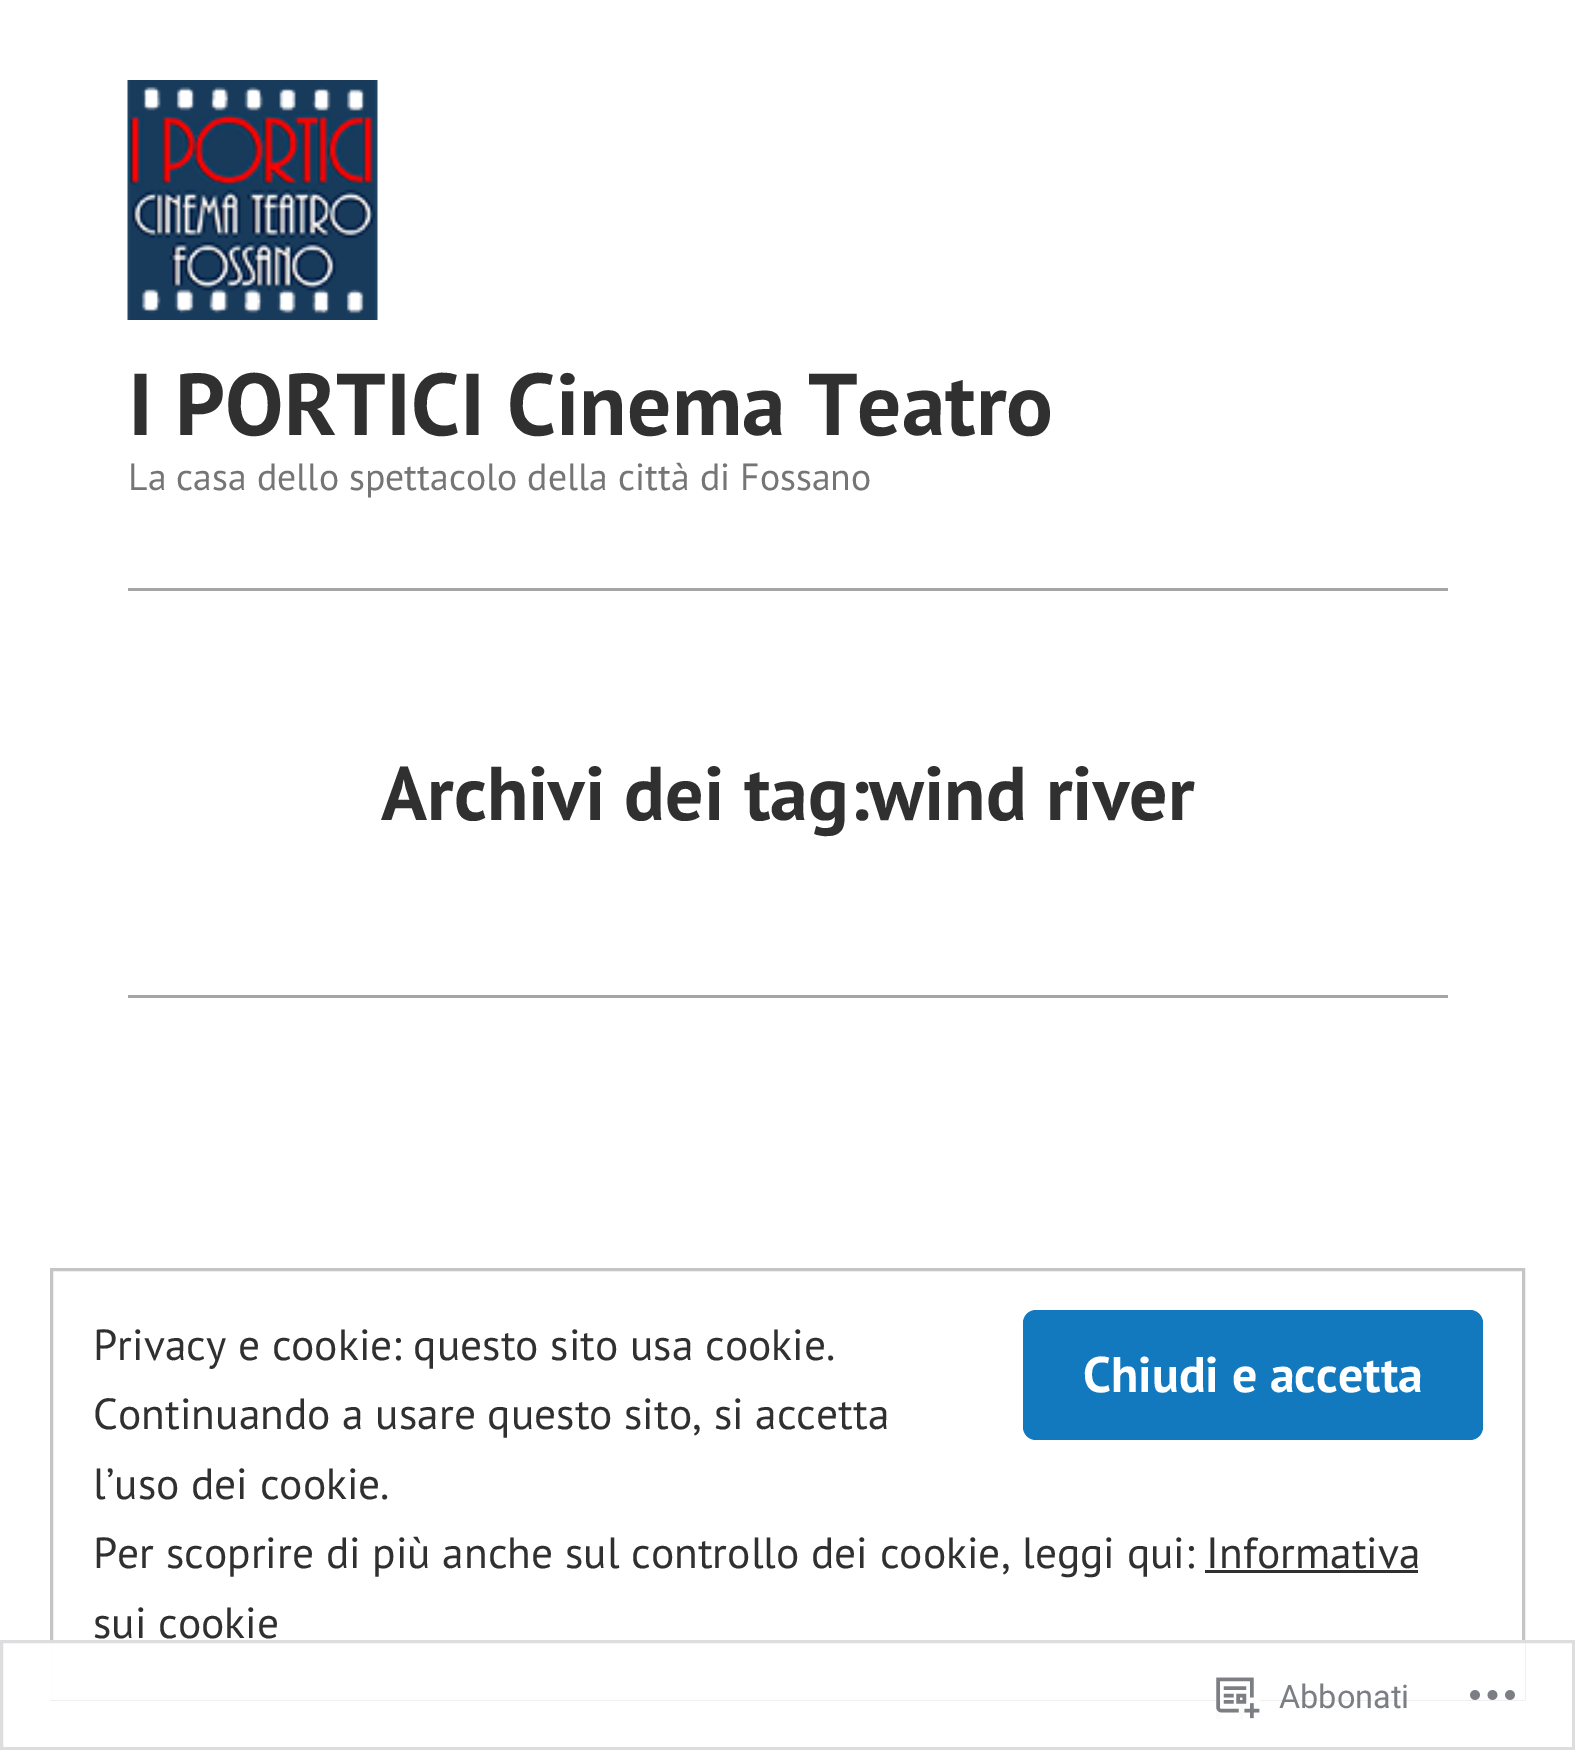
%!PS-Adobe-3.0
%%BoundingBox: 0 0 1575 1750
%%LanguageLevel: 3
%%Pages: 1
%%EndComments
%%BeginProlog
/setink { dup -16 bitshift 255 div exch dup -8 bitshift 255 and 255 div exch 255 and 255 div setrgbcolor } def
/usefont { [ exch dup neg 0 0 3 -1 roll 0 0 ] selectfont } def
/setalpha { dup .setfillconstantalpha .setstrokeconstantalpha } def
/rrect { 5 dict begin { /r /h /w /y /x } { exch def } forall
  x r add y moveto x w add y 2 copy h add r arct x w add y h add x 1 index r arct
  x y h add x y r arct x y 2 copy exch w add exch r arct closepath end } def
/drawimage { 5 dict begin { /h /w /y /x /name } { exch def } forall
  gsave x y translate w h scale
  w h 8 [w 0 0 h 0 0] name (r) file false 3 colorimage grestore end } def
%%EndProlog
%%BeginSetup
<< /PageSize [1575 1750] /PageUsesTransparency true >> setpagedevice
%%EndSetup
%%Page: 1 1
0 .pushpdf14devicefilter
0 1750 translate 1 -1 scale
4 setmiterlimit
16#FFFFFF setink
0 0 1575 1750 rectfill
(img1.raw) 127 80 251 240 drawimage
/PTSans-Bold 87.5 usefont
16#303030 setink
128 435 moveto (I PORTICI Cinema Teatro) show
/PTSans-Regular 37.8 usefont
16#757575 setink
128 490 moveto (La casa dello spettacolo della città di Fossano) show
16#A5A5A5 setink
128 588 1320 3 rectfill
/PTSans-Bold 76 usefont
16#303030 setink
381 820 moveto (Archivi dei tag:wind river) show
16#A5A5A5 setink
128 995 1320 3 rectfill
16#C5C5C5 setink
3 setlinewidth
51.5 1269.5 1472 429 rectstroke
/PTSans-Regular 43.5 usefont
16#303030 setink
93 1360 moveto (Privacy e cookie: questo sito usa cookie.) show
16#1279BE setink
1023 1310 460 130 13 rrect fill
/PTSans-Bold 50 usefont
16#FFFFFF setink
1083 1392 moveto (Chiudi e accetta) show
/PTSans-Regular 43.5 usefont
16#303030 setink
[
    [(Continuando a usare questo sito, si accetta) 93 1429]
    [(l’uso dei cookie.) 93 1499]
    [(Per scoprire di più anche sul controllo dei cookie, leggi qui: Informativa) 93 1568]
    [(sui cookie) 93 1638]
] { aload pop moveto show } forall
[
    [1205 1570 213 3 16#303030]
    [93 1640 185 3 16#303030]
] { aload pop setink rectfill } forall
0.98 setalpha
[
    [50 1640 1475 60 16#FFFFFF]
] { aload pop setink rectfill } forall
16#DCDCDE setink
1.5 1641.5 1572 107 rectstroke
1 setalpha
(img2.raw) 1216 1677 44 42 drawimage
/Roboto-Regular 32.5 usefont
16#7B7F84 setink
1279 1708 moveto (Abbonati) show
(img3.raw) 1470 1690 45 10 drawimage
.poppdf14devicefilter showpage
%%EOF
